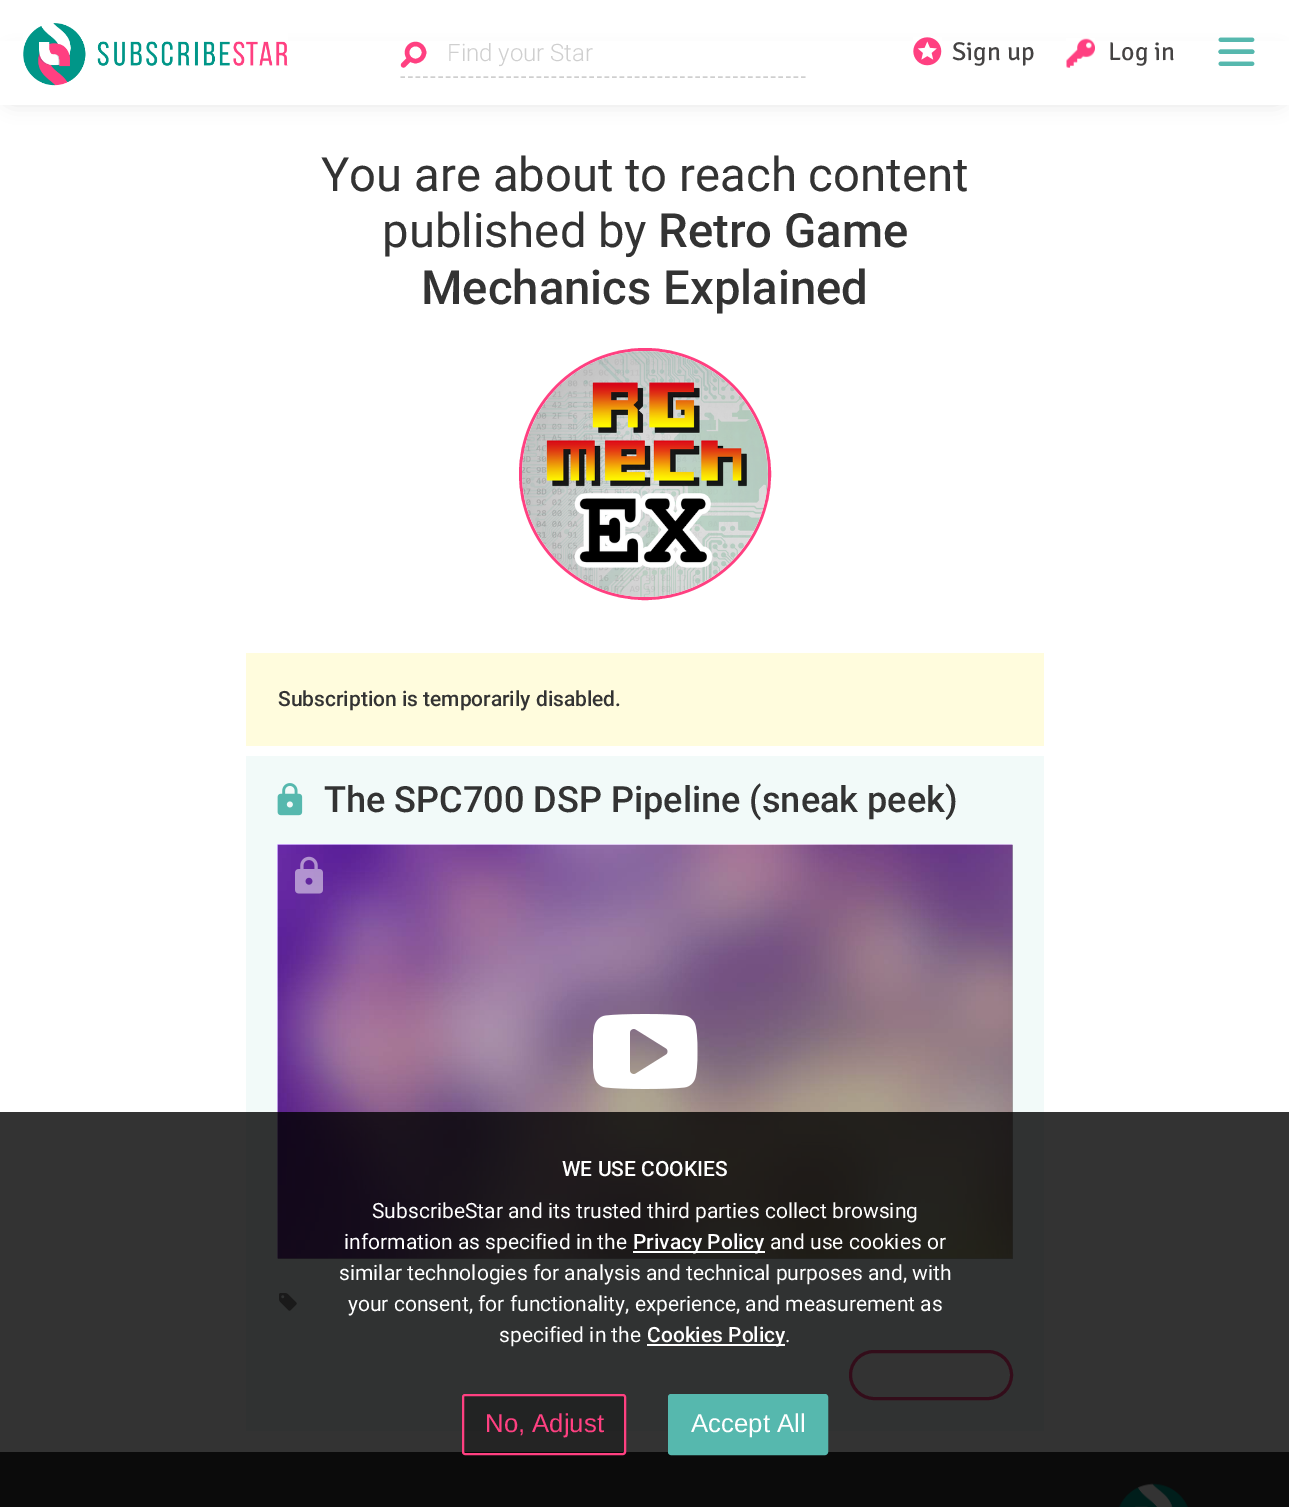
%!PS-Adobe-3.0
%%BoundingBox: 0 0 1289 1507
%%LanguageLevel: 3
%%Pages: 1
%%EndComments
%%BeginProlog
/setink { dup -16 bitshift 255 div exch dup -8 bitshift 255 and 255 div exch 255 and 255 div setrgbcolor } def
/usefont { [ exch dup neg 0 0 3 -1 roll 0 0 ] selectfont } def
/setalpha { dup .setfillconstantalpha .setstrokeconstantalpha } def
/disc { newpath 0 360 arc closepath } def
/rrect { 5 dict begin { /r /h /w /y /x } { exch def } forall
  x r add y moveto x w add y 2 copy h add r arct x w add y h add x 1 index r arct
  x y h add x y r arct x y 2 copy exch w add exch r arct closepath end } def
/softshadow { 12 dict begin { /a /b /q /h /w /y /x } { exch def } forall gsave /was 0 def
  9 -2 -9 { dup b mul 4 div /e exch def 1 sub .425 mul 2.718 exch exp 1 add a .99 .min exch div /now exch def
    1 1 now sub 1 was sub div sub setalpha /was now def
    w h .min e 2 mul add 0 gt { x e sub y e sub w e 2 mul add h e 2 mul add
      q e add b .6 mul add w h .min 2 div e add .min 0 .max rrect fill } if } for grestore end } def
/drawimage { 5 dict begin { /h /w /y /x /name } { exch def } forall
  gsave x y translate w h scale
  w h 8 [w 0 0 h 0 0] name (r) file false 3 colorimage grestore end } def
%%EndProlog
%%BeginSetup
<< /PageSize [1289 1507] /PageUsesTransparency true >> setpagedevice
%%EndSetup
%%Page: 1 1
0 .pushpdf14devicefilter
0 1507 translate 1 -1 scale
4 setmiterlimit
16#FFFFFF setink
0 0 1289 1507 rectfill
16#000000 setink
0 53 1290 52 15 9 0.1 softshadow
16#FFFFFF setink
0 41 1289 64 rectfill
(img1.raw) 23 23 265 63 drawimage
16#CFCFCF setink
1.5 setlinewidth
[4.5 3.06] 0 setdash
400.5 77 moveto 805.5 77 lineto stroke
16#FF4081 setink
4.4 setlinewidth
[] 0 setdash
415.5 52.5 8.5 disc stroke
5.2 setlinewidth
1 setlinecap
403.5 65 moveto 409 59.5 lineto stroke
/Roboto-Light 24 usefont
16#CFCFCF setink
447 61 moveto (Find your Star) show
(img2.raw) 913 37 29 29 drawimage
/SignikaNegative-Regular 25.75 usefont
16#454343 setink
952 60 moveto (Sign up) show
(img3.raw) 1066 38 29 30 drawimage
1108 60 moveto (Log in) show
(img4.raw) 1218 37 37 29 drawimage
/Roboto-Regular 47.25 usefont
16#333333 setink
321 191 moveto (You are about to reach content) show
382 247 moveto (published by) show
/Roboto-Medium 47.25 usefont
658 247 moveto (Retro Game) show
421 304 moveto (Mechanics Explained) show
16#FF4081 setink
3 setlinewidth
0 setlinecap
645 474 124.5 disc stroke
(img5.raw) 522 351 246 246 drawimage
16#FFFCDD setink
246 653 798 93 rectfill
/Roboto-Medium 21 usefont
16#333333 setink
278 706 moveto (Subscription is temporarily disabled.) show
16#F2FAF9 setink
246 756 798 675 rectfill
16#A9AFAE setink
278 845 735 414 rectfill
(img6.raw) 277 783 26 33 drawimage
/Roboto-Medium 36.1 usefont
16#333333 setink
324 812 moveto (The SPC700 DSP Pipeline \(sneak peek\)) show
(img7.raw) 277 844 736 415 drawimage
(img8.raw) 295 856 28 38 drawimage
(img9.raw) 593 1014 105 75 drawimage
(img10.raw) 279 1293 18 18 drawimage
16#FFFFFF setink
850.5 1351.5 161 47 23.5 rrect gsave fill grestore
16#FF4081 setink
stroke
16#363636 setink
0 1452 1289 55 rectfill
(img11.raw) 1119 1483 69 24 drawimage
0.8 setalpha
16#000000 setink
0 1112 1289 395 rectfill
/Roboto-Medium 21 usefont
1 setalpha
16#FFFFFF setink
562 1176 moveto (WE USE COOKIES) show
/Roboto-Regular 21 usefont
372 1218 moveto (SubscribeStar and its trusted third parties collect browsing) show
344 1249 moveto (information as specified in the) show
633 1251 132 2 rectfill
/Roboto-Medium 21 usefont
633 1249 moveto (Privacy Policy) show
/Roboto-Regular 21 usefont
[
    [(and use cookies or) 770 1249]
    [(similar technologies for analysis and technical purposes and, with) 339 1280]
    [(your consent, for functionality, experience, and measurement as) 348 1311]
    [(specified in the) 499 1342]
] { aload pop moveto show } forall
647 1344 138 2 rectfill
/Roboto-Medium 21 usefont
647 1342 moveto (Cookies Policy) show
/Roboto-Regular 21 usefont
785 1342 moveto (.) show
0.3 setalpha
16#000000 setink
463 1395 162 59 2 rrect fill
1 setalpha
16#FF4081 setink
2 setlinewidth
463 1395 162 59 2 rrect stroke
/LiberationSans-Regular 25.75 usefont
485 1432 moveto (No, Adjust) show
16#56B8AE setink
669 1395 158 59 2 rrect gsave fill grestore
stroke
16#FFFFFF setink
691 1432 moveto (Accept All) show
.poppdf14devicefilter showpage
%%EOF
